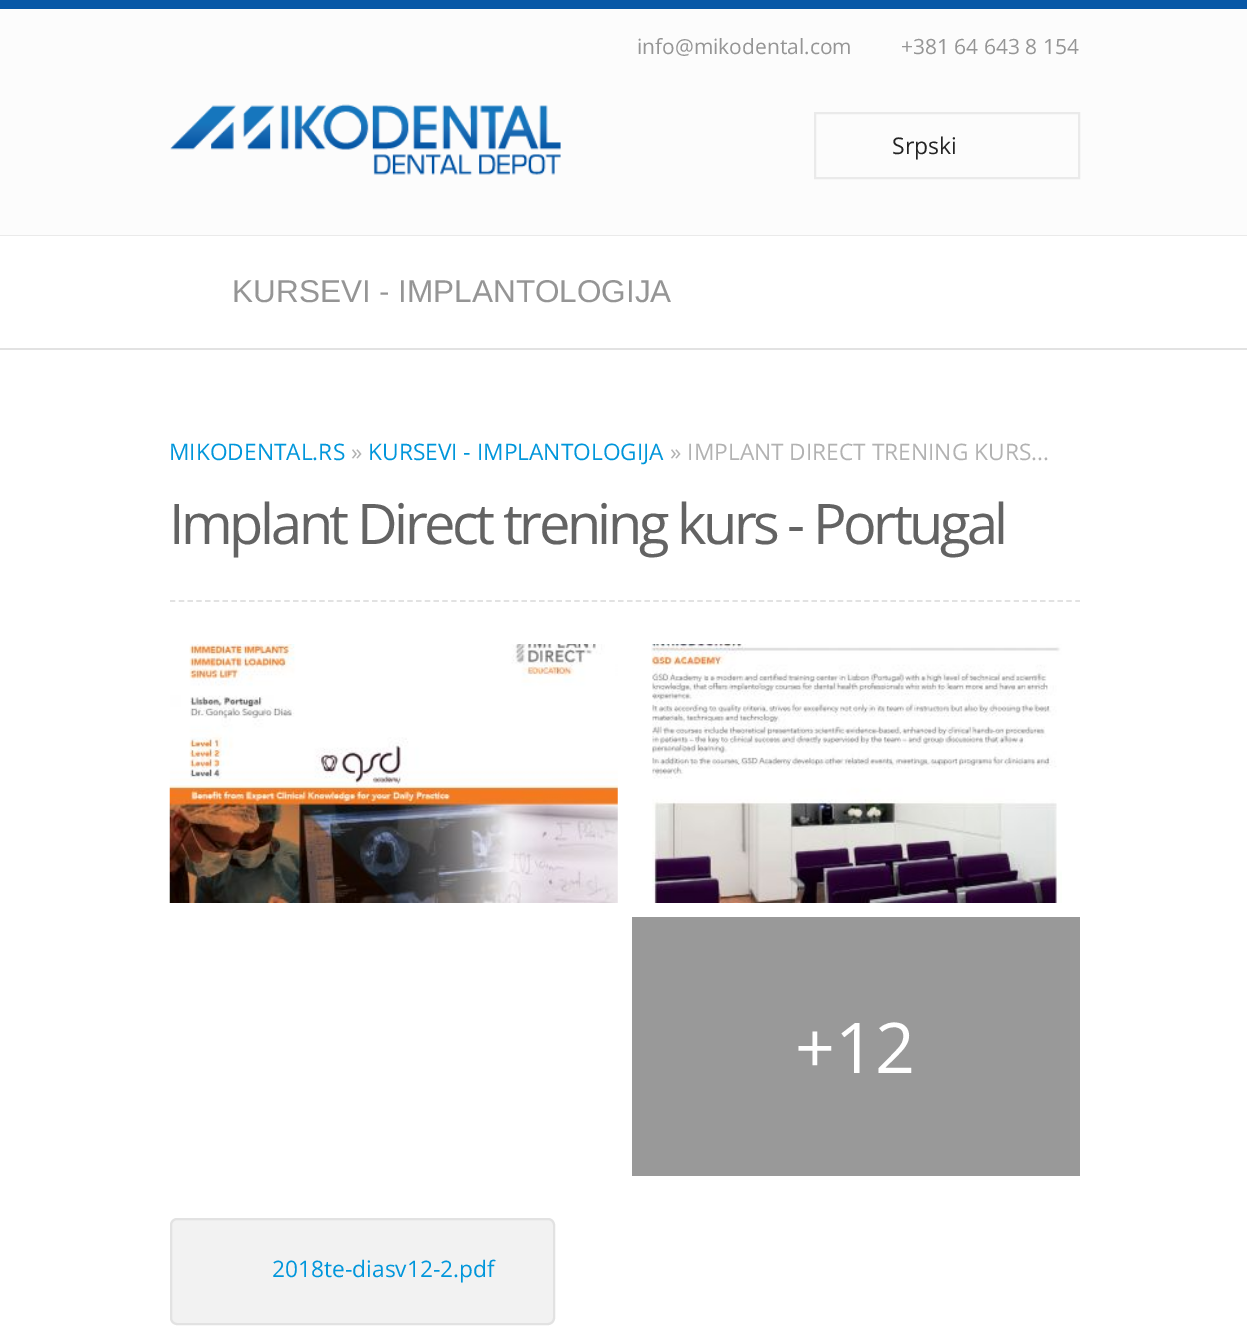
%!PS-Adobe-3.0
%%BoundingBox: 0 0 1247 1331
%%LanguageLevel: 3
%%Pages: 1
%%EndComments
%%BeginProlog
/setink { dup -16 bitshift 255 div exch dup -8 bitshift 255 and 255 div exch 255 and 255 div setrgbcolor } def
/usefont { [ exch dup neg 0 0 3 -1 roll 0 0 ] selectfont } def
/rrect { 5 dict begin { /r /h /w /y /x } { exch def } forall
  x r add y moveto x w add y 2 copy h add r arct x w add y h add x 1 index r arct
  x y h add x y r arct x y 2 copy exch w add exch r arct closepath end } def
/drawimage { 5 dict begin { /h /w /y /x /name } { exch def } forall
  gsave x y translate w h scale
  w h 8 [w 0 0 h 0 0] name (r) file false 3 colorimage grestore end } def
%%EndProlog
%%BeginSetup
<< /PageSize [1247 1331] >> setpagedevice
%%EndSetup
%%Page: 1 1
0 1331 translate 1 -1 scale
4 setmiterlimit
16#FFFFFF setink
0 0 1247 1331 rectfill
[
    [0 9 1247 226 16#FCFCFC]
    [0 0 1247 9 16#0858A7]
    [0 235 1247 1 16#EAEAEA]
] { aload pop setink rectfill } forall
/OpenSans-Regular 21 usefont
16#959595 setink
637 54 moveto (info@mikodental.com) show
901 54 moveto (+381 64 643 8 154) show
(img1.raw) 170 104 391 71 drawimage
16#EAEAEA setink
2 setlinewidth
815 113 264 65 rectstroke
/OpenSans-Regular 23 usefont
16#242424 setink
892 154 moveto (Srpski) show
16#E2E2E2 setink
0 348 1247 2 rectfill
/LiberationSans-Regular 31.5 usefont
16#959595 setink
232 302 moveto (KURSEVI - IMPLANTOLOGIJA) show
/OpenSans-Regular 22.75 usefont
16#0096DB setink
169 460 moveto (MIKODENTAL.RS) show
16#B2B2B2 setink
351 460 moveto (») show
16#0096DB setink
368 460 moveto (KURSEVI - IMPLANTOLOGIJA) show
16#B2B2B2 setink
670 460 moveto (» IMPLANT DIRECT TRENING KURS...) show
16#E2E2E2 setink
1.8 setlinewidth
[5.25 3.54] 0 setdash
170 601 moveto 1080 601 lineto stroke
/OpenSans-Regular 56 usefont
16#636363 setink
169 544 moveto -3.5 0 (Implant Direct trening kurs - Portugal) ashow
(img2.raw) 169 644 449 259 drawimage
(img3.raw) 651 644 411 259 drawimage
16#999999 setink
632 917 448 259 rectfill
/OpenSans-Regular 70 usefont
16#FFFFFF setink
795 1073 moveto (+12) show
16#F2F2F2 setink
171 1219 383 105 6 rrect gsave fill grestore
16#E2E2E2 setink
2 setlinewidth
[] 0 setdash
stroke
/OpenSans-Regular 22.75 usefont
16#0096DB setink
272 1277 moveto (2018te-diasv12-2.pdf) show
showpage
%%EOF
